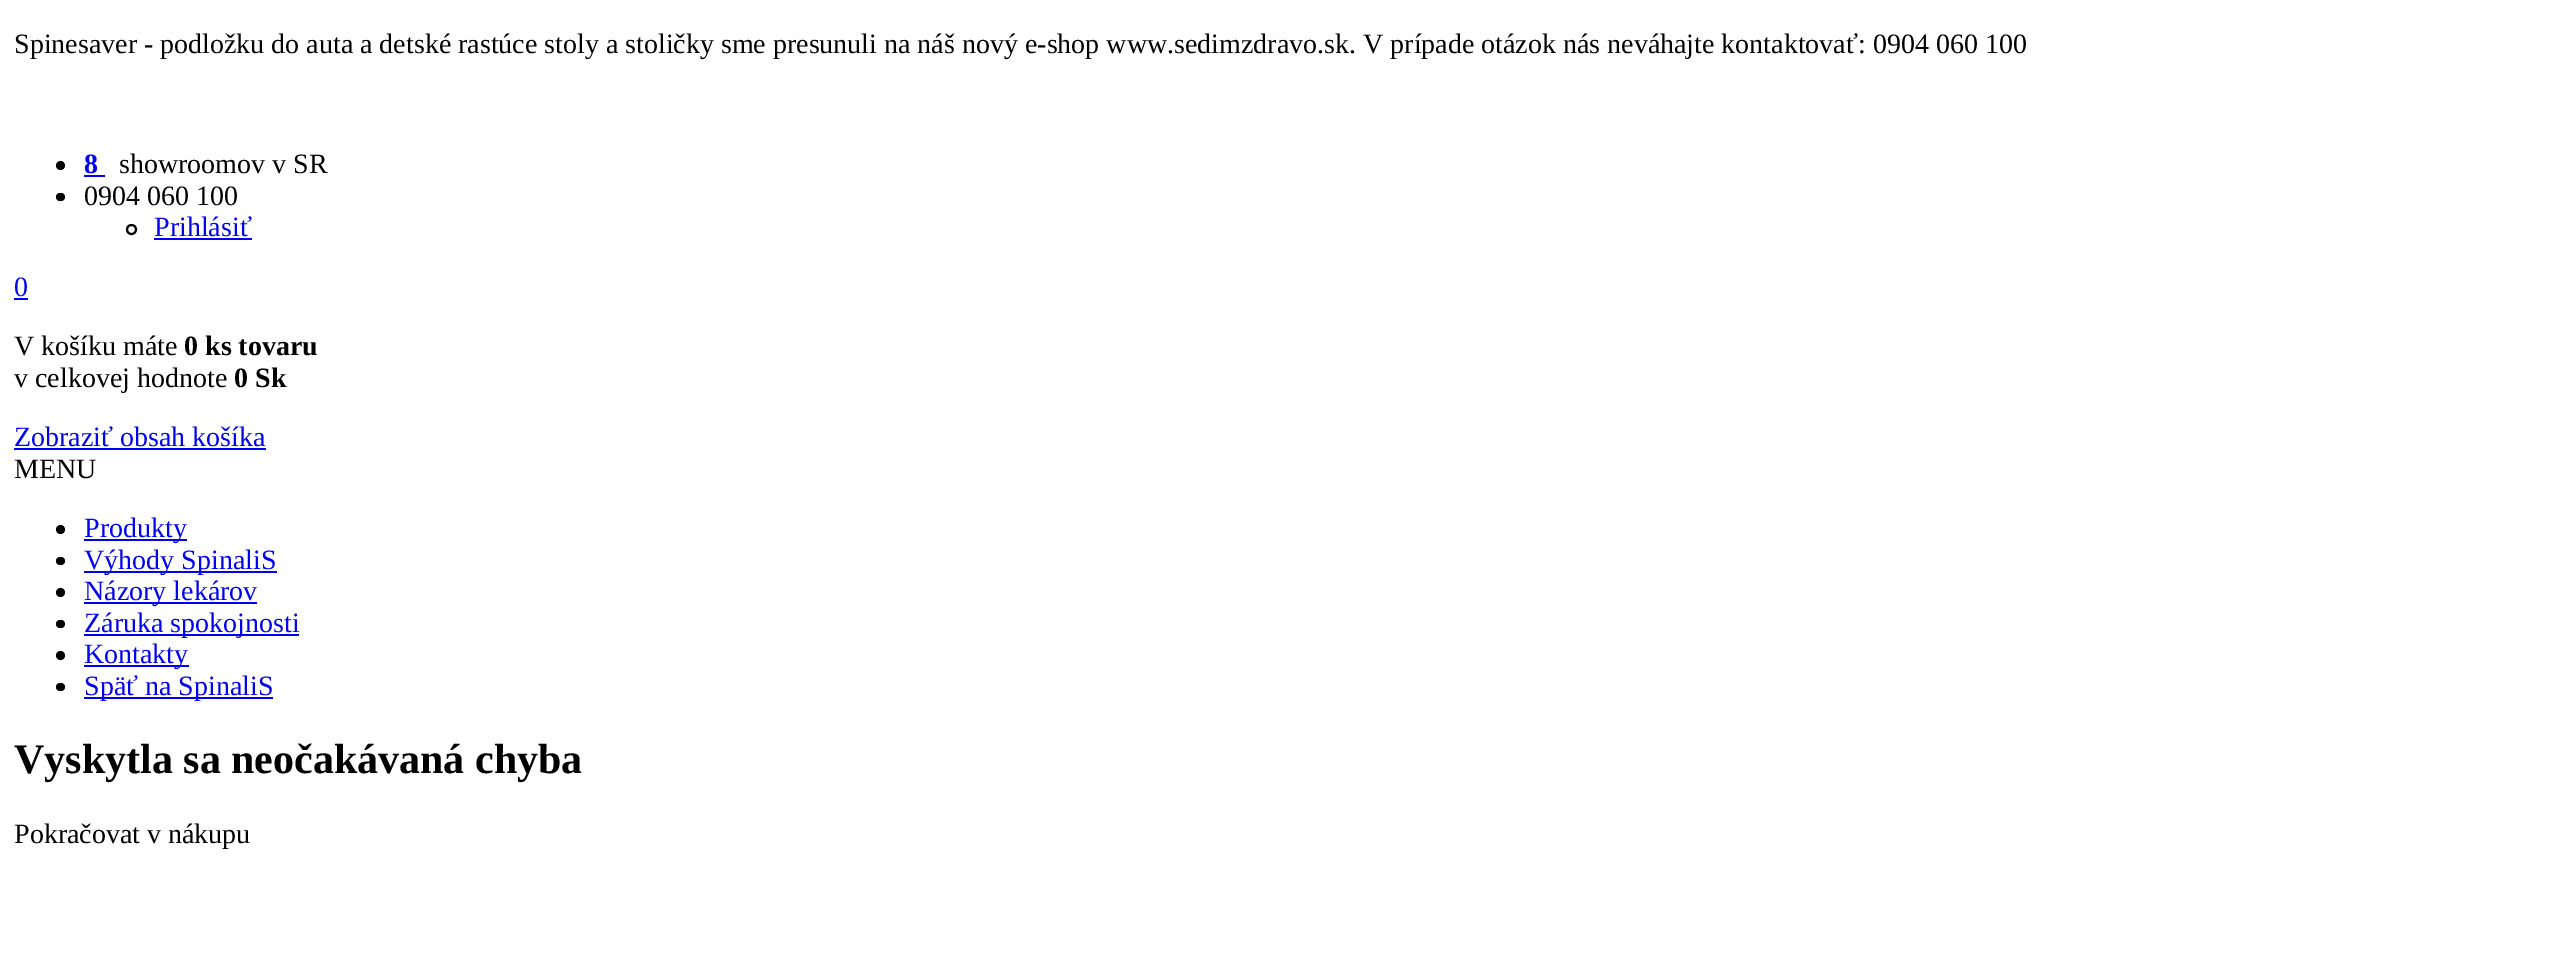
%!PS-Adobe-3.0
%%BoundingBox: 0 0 2549 960
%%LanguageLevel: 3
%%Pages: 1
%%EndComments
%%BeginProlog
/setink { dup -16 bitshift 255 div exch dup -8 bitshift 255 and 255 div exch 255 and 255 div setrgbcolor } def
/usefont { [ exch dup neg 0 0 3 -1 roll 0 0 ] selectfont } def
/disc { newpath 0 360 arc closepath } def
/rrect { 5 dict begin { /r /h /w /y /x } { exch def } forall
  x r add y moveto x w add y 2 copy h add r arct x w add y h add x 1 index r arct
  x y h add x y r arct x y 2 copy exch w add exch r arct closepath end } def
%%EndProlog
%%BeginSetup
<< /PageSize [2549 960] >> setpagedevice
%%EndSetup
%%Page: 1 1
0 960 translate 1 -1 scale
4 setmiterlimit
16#FFFFFF setink
0 0 2549 960 rectfill
/LiberationSerif-Regular 28 usefont
16#000000 setink
14 53 moveto (Spinesaver - podložku do auta a detské rastúce stoly a stoličky sme presunuli na náš nový e-shop www.sedimzdravo.sk. V prípade otázok nás neváhajte kontaktovať: 0904 060 100) show
60.5 165.5 4.5 disc fill
/LiberationSerif-Bold 28 usefont
16#0000EE setink
84 173 moveto (8) show
84 175 21 2 rectfill
/LiberationSerif-Regular 28 usefont
16#000000 setink
119 173 moveto (showroomov v SR) show
56 193 9 8 4 rrect fill
84 205 moveto (0904 060 100) show
2 setlinewidth
131.5 229.5 4.5 disc stroke
16#0000EE setink
154 236 moveto (Prihlásiť) show
154 238 98 2 rectfill
14 296 moveto (0) show
14 298 14 2 rectfill
16#000000 setink
14 355 moveto (V košíku máte) show
/LiberationSerif-Bold 28 usefont
184 355 moveto (0 ks tovaru) show
/LiberationSerif-Regular 28 usefont
14 387 moveto (v celkovej hodnote) show
/LiberationSerif-Bold 28 usefont
234 387 moveto (0 Sk) show
/LiberationSerif-Regular 28 usefont
16#0000EE setink
14 446 moveto (Zobraziť obsah košíka) show
14 448 252 2 rectfill
16#000000 setink
14 478 moveto (MENU) show
60.5 529.5 4.5 disc fill
16#0000EE setink
84 539 103 2 rectfill
84 537 moveto (Produkty) show
16#000000 setink
56 557 9 8 4 rrect fill
16#0000EE setink
84 571 193 2 rectfill
84 569 moveto (Výhody SpinaliS) show
16#000000 setink
60.5 592.5 4.5 disc fill
16#0000EE setink
84 602 173 2 rectfill
84 600 moveto (Názory lekárov) show
16#000000 setink
56 620 9 8 4 rrect fill
16#0000EE setink
84 634 215 2 rectfill
84 632 moveto (Záruka spokojnosti) show
16#000000 setink
60.5 655.5 4.5 disc fill
16#0000EE setink
84 665 105 2 rectfill
84 663 moveto (Kontakty) show
16#000000 setink
56 683 9 8 4 rrect fill
16#0000EE setink
84 697 189 2 rectfill
84 695 moveto (Späť na SpinaliS) show
/LiberationSerif-Bold 42 usefont
16#000000 setink
14 773 moveto (Vyskytla sa neočakávaná chyba) show
/LiberationSerif-Regular 28 usefont
14 843 moveto (Pokračovat v nákupu) show
showpage
%%EOF
